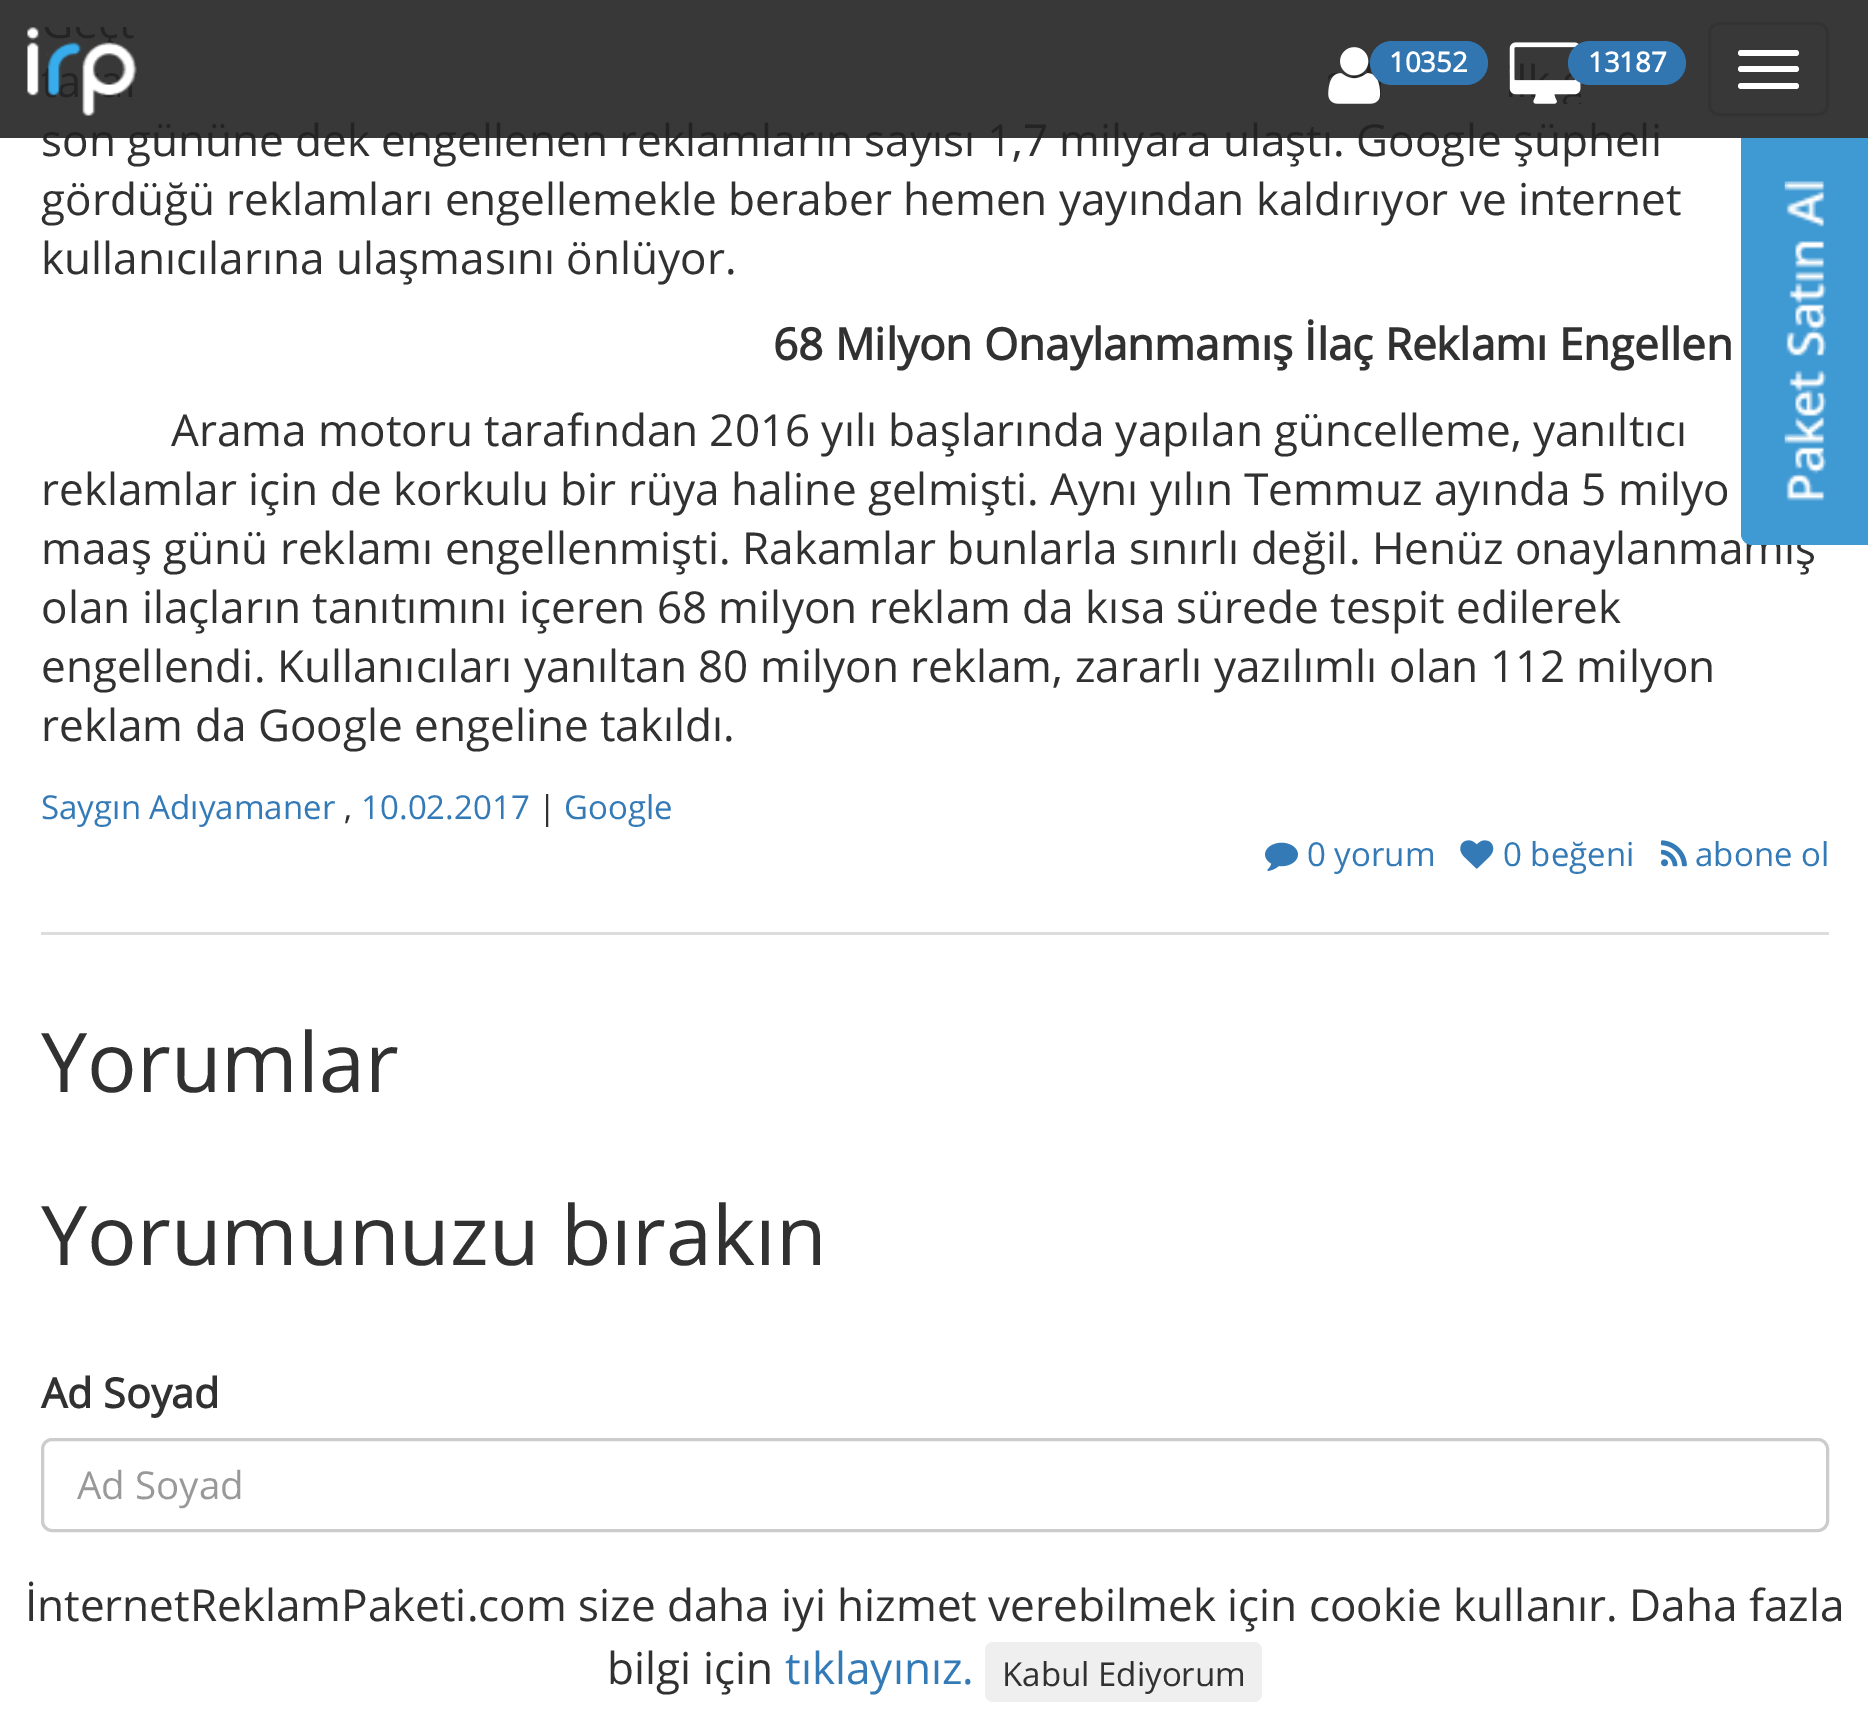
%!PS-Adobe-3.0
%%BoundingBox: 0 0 1868 1714
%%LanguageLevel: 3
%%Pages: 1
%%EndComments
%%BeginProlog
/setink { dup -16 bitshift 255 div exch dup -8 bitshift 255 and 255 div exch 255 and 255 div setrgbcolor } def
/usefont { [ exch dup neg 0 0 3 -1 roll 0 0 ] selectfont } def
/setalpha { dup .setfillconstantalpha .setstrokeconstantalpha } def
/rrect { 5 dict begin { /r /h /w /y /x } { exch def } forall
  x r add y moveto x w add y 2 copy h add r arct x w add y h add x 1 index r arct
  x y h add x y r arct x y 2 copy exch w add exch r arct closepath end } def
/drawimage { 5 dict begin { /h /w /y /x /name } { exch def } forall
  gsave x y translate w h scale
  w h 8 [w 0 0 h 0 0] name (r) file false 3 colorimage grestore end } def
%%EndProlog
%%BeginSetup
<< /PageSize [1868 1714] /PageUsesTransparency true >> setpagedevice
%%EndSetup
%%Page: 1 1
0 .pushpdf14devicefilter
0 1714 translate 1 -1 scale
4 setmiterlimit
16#FFFFFF setink
0 0 1868 1714 rectfill
/OpenSans-Regular 44 usefont
16#313131 setink
41 156 moveto (son gününe dek engellenen reklamların sayısı 1,7 milyara ulaştı. Google şüpheli) show
0.9 setalpha
16#222222 setink
0 0 1868 138 rectfill
1 setalpha
(img1.raw) 27 27 110 89 drawimage
(img2.raw) 1328 47 53 57 drawimage
16#3276B1 setink
1370 41 118 44 22 rrect fill
/OpenSans-Bold 27.5 usefont
16#FFFFFF setink
1389 72 moveto (10352) show
(img3.raw) 1509 42 72 62 drawimage
16#3276B1 setink
1568 41 118 44 22 rrect fill
16#FFFFFF setink
1588 72 moveto (13187) show
16#333333 setink
3 setlinewidth
1709.5 23.5 118 91 9.5 rrect stroke
16#FFFFFF setink
1738 50 61 6 3 rrect fill
1738 66 61 6 3 rrect fill
1738 83 61 6 3 rrect fill
16#DDDDDD setink
41 932 1788 3 rectfill
/OpenSans-Regular 44 usefont
16#313131 setink
41 215 moveto (gördüğü reklamları engellemekle beraber hemen yayından kaldırıyor ve internet) show
41 274 moveto (kullanıcılarına ulaşmasını önlüyor.) show
/OpenSans-Bold 44 usefont
773 360 moveto (68 Milyon Onaylanmamış İlaç Reklamı Engellen) show
/OpenSans-Regular 44 usefont
[
    [(Arama motoru tarafından 2016 yılı başlarında yapılan güncelleme, yanıltıcı) 171 446]
    [(reklamlar için de korkulu bir rüya haline gelmişti. Aynı yılın Temmuz ayında 5 milyo) 41 505]
    [(maaş günü reklamı engellenmişti. Rakamlar bunlarla sınırlı değil. Henüz onaylanmamış) 41 564]
    [(olan ilaçların tanıtımını içeren 68 milyon reklam da kısa sürede tespit edilerek) 41 623]
    [(engellendi. Kullanıcıları yanıltan 80 milyon reklam, zararlı yazılımlı olan 112 milyon) 41 682]
    [(reklam da Google engeline takıldı.) 41 741]
] { aload pop moveto show } forall
/OpenSans-Regular 33 usefont
16#337AB7 setink
41 819 moveto (Saygın Adıyamaner) show
16#313131 setink
344 819 moveto (,) show
16#337AB7 setink
361 819 moveto (10.02.2017) show
16#313131 setink
538 819 moveto (|) show
16#337AB7 setink
564 819 moveto (Google) show
(img4.raw) 1265 842 33 29 drawimage
1307 866 moveto (0 yorum) show
(img5.raw) 1460 840 34 29 drawimage
1503 866 moveto (0 beğeni) show
(img6.raw) 1661 840 26 27 drawimage
1695 866 moveto (abone ol) show
/OpenSans-Regular 82.5 usefont
16#313131 setink
41 1092 moveto (Yorumlar) show
41 1265 moveto (Yorumunuzu bırakın) show
/OpenSans-Bold 41.25 usefont
41 1408 moveto (Ad Soyad) show
16#CCCCCC setink
42.5 1439.5 1785 91 9.5 rrect stroke
/OpenSans-Regular 38.5 usefont
16#999999 setink
77 1499 moveto (Ad Soyad) show
16#3F99D3 setink
1741 138 moveto 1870 138 lineto 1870 545 lineto 1752 545 lineto 1746 545 1741 540 1741 534 curveto closepath fill
(img7.raw) 1784 181 42 320 drawimage
/OpenSans-Regular 44 usefont
16#313131 setink
25 1621 moveto (İnternetReklamPaketi.com size daha iyi hizmet verebilmek için cookie kullanır. Daha fazla) show
607 1684 moveto (bilgi için) show
16#337AB7 setink
785 1684 moveto (tıklayınız.) show
16#EFEFEF setink
985 1642 277 60 8 rrect fill
/OpenSans-Regular 33 usefont
16#313131 setink
1002 1686 moveto (Kabul Ediyorum) show
.poppdf14devicefilter showpage
%%EOF
